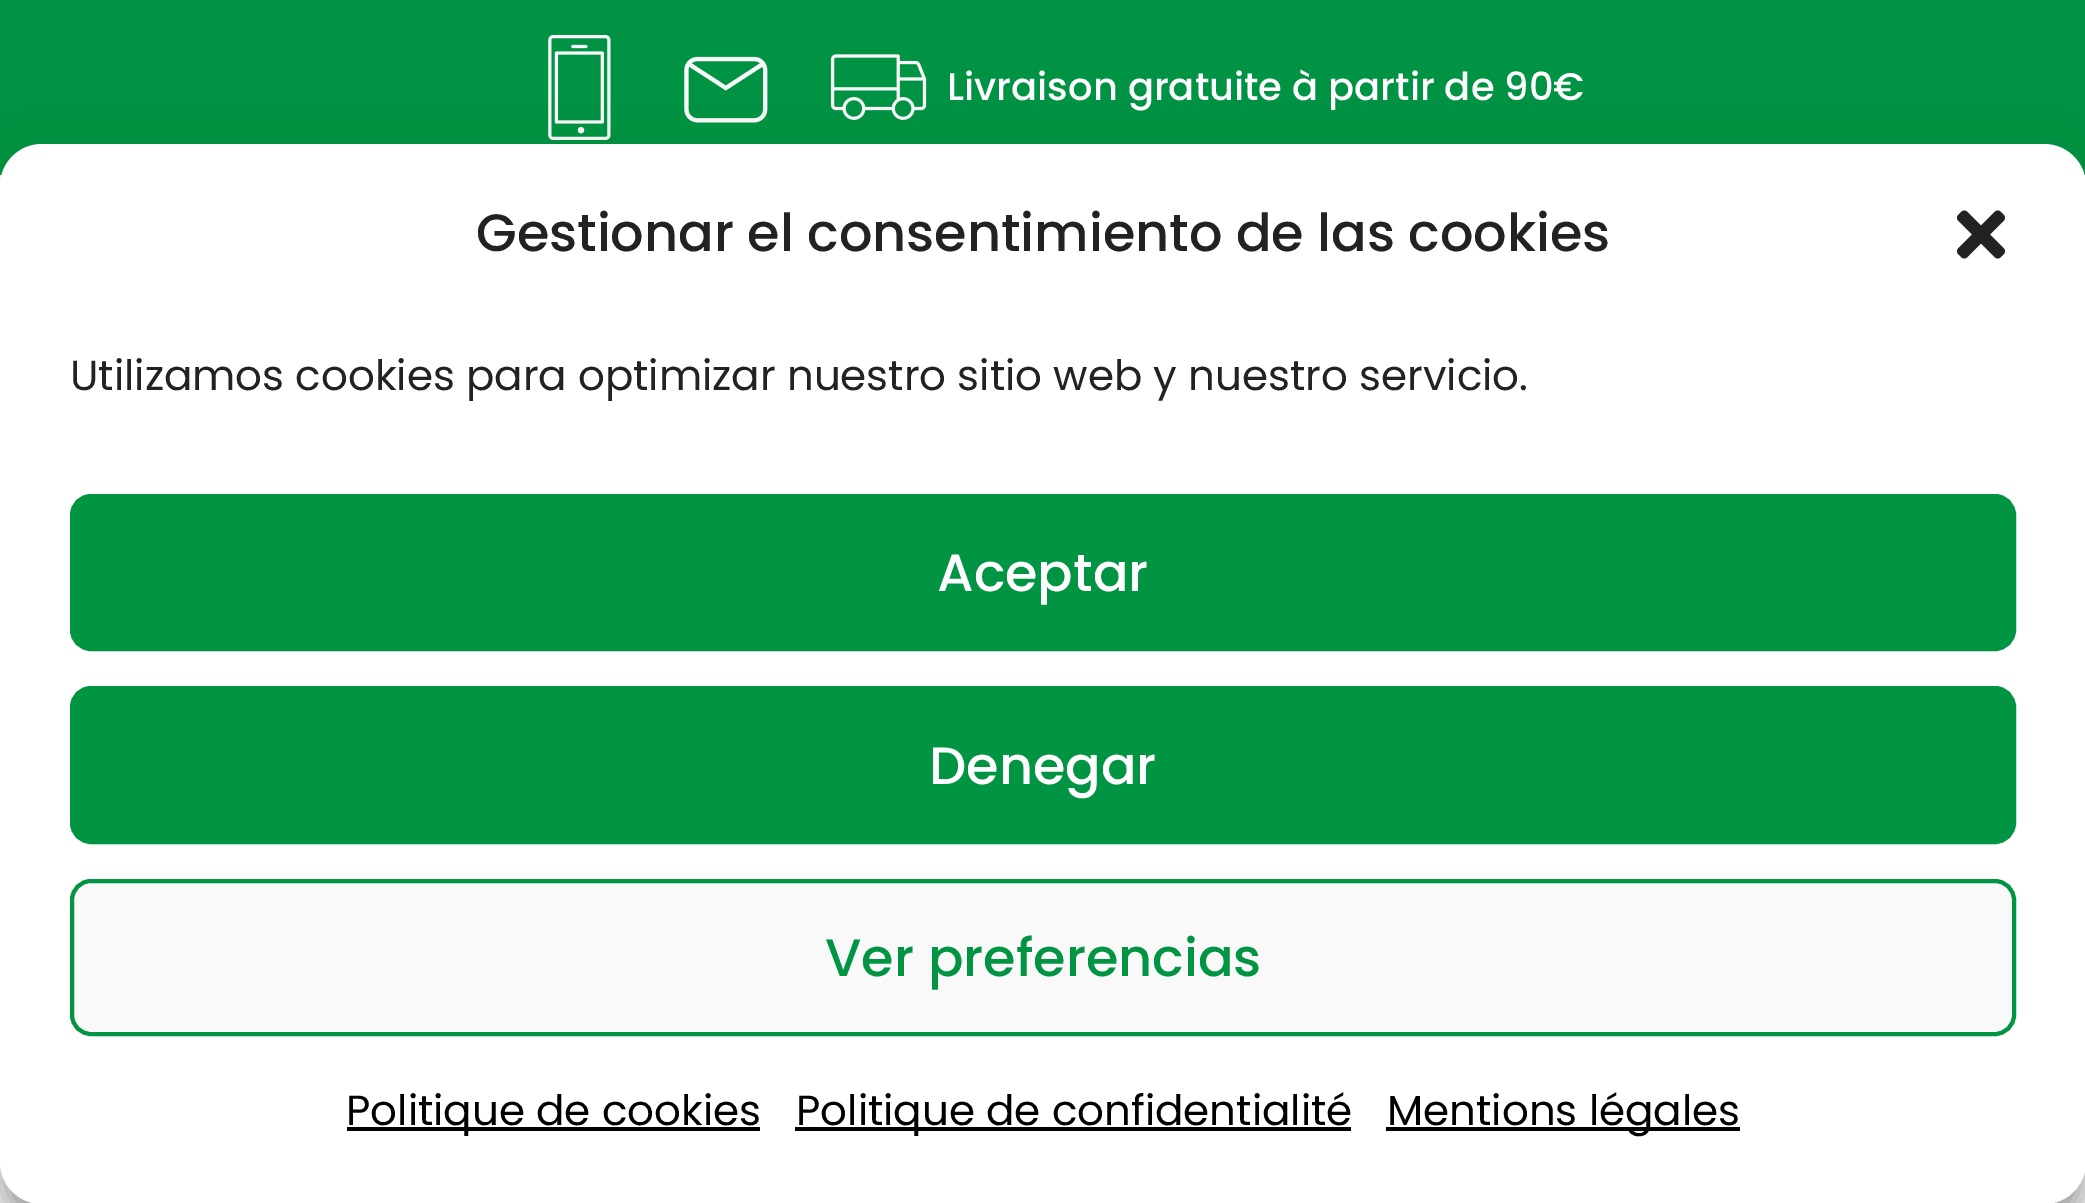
%!PS-Adobe-3.0
%%BoundingBox: 0 0 2085 1203
%%LanguageLevel: 3
%%Pages: 1
%%EndComments
%%BeginProlog
/setink { dup -16 bitshift 255 div exch dup -8 bitshift 255 and 255 div exch 255 and 255 div setrgbcolor } def
/usefont { [ exch dup neg 0 0 3 -1 roll 0 0 ] selectfont } def
/setalpha { dup .setfillconstantalpha .setstrokeconstantalpha } def
/rrect { 5 dict begin { /r /h /w /y /x } { exch def } forall
  x r add y moveto x w add y 2 copy h add r arct x w add y h add x 1 index r arct
  x y h add x y r arct x y 2 copy exch w add exch r arct closepath end } def
/softshadow { 12 dict begin { /a /b /q /h /w /y /x } { exch def } forall gsave /was 0 def
  9 -2 -9 { dup b mul 4 div /e exch def 1 sub .425 mul 2.718 exch exp 1 add a .99 .min exch div /now exch def
    1 1 now sub 1 was sub div sub setalpha /was now def
    w h .min e 2 mul add 0 gt { x e sub y e sub w e 2 mul add h e 2 mul add
      q e add b .6 mul add w h .min 2 div e add .min 0 .max rrect fill } if } for grestore end } def
/drawimage { 5 dict begin { /h /w /y /x /name } { exch def } forall
  gsave x y translate w h scale
  w h 8 [w 0 0 h 0 0] name (r) file false 3 colorimage grestore end } def
%%EndProlog
%%BeginSetup
<< /PageSize [2085 1203] /PageUsesTransparency true >> setpagedevice
%%EndSetup
%%Page: 1 1
0 .pushpdf14devicefilter
0 1203 translate 1 -1 scale
4 setmiterlimit
16#FFFFFF setink
0 0 2085 1203 rectfill
16#009343 setink
0 0 2085 175 rectfill
(img1.raw) 548 35 63 105 drawimage
(img2.raw) 684 56 84 67 drawimage
(img3.raw) 830 54 97 66 drawimage
/Poppins-Medium 38.5 usefont
16#FFFFFF setink
947 100 moveto (Livraison gratuite à partir de 90€) show
16#000000 setink
0 165 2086 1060 42 10.5 0.23 softshadow
0 179 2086 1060 42 35 0.19 softshadow
16#FFFFFF setink
0 144 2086 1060 42 rrect fill
/Poppins-Medium 52.5 usefont
16#222222 setink
476 251 moveto (Gestionar el consentimiento de las cookies) show
(img4.raw) 1956 210 50 49 drawimage
/Poppins-Regular 42 usefont
70 390 moveto (Utilizamos cookies para optimizar nuestro sitio web y nuestro servicio.) show
16#009443 setink
72 496 1942 153 19 rrect gsave fill grestore
4 setlinewidth
stroke
/Poppins-Medium 52.5 usefont
16#FFFFFF setink
937 591 moveto (Aceptar) show
16#009443 setink
72 688 1942 154 19 rrect gsave fill grestore
stroke
16#FFFFFF setink
929 784 moveto (Denegar) show
16#F9F9F9 setink
72 881 1942 153 19 rrect gsave fill grestore
16#009443 setink
stroke
825 976 moveto (Ver preferencias) show
16#000000 setink
347 1127 413 4 rectfill
/Poppins-Regular 42 usefont
346 1125 moveto (Politique de cookies) show
795 1127 556 4 rectfill
796 1125 moveto (Politique de confidentialité) show
1386 1127 354 4 rectfill
1387 1125 moveto (Mentions légales) show
.poppdf14devicefilter showpage
%%EOF
